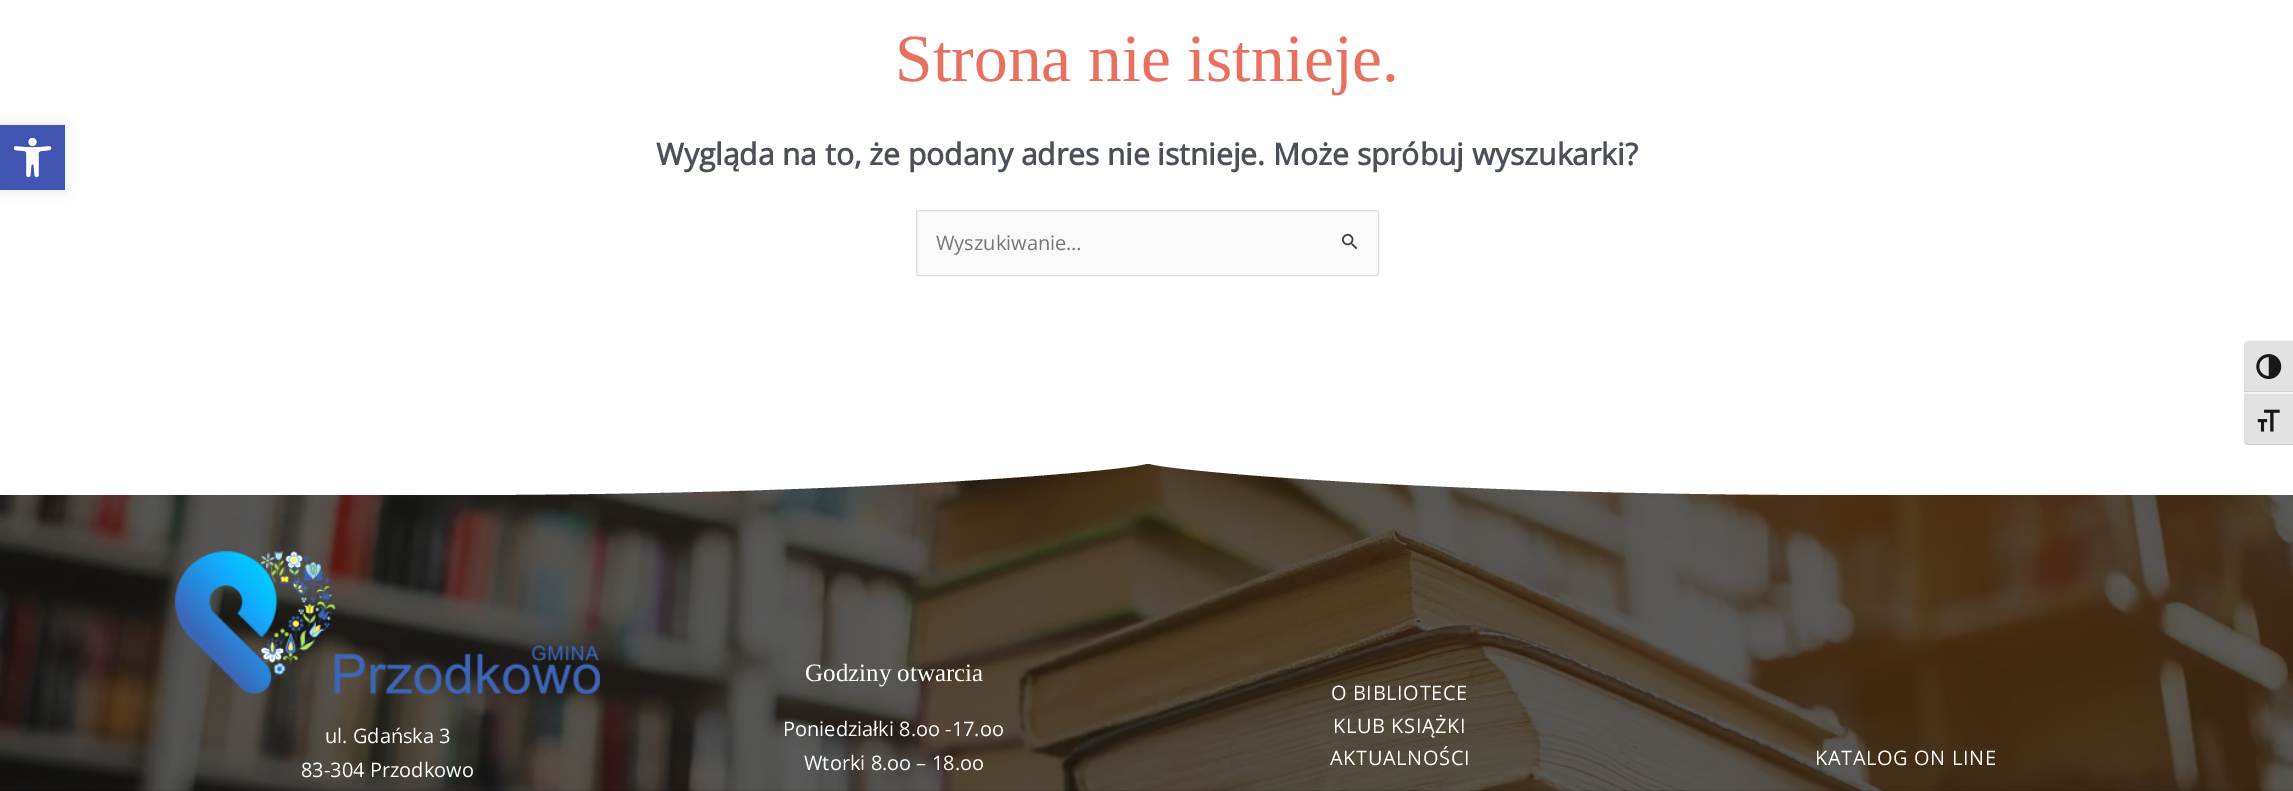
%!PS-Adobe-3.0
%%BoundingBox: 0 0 2293 791
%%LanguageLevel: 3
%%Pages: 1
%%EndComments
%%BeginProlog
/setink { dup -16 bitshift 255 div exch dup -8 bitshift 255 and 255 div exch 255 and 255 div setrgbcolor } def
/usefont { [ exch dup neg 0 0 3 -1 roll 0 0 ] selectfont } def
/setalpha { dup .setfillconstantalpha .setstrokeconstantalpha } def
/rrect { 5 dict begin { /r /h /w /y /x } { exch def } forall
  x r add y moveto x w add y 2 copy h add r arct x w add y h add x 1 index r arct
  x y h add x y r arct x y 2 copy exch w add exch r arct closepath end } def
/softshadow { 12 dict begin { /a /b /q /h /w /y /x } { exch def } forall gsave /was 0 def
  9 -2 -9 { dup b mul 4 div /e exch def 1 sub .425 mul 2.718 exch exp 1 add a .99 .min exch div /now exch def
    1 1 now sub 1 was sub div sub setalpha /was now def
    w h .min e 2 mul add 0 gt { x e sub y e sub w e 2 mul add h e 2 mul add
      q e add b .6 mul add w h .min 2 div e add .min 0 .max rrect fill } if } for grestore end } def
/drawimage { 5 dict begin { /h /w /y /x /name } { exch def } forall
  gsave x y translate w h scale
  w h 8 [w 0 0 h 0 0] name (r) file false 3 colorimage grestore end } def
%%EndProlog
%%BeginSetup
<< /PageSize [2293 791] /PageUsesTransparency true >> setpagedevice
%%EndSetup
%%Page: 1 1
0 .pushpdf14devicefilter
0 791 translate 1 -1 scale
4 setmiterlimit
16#FFFFFF setink
0 0 2293 791 rectfill
16#000000 setink
0 125 65 65 0 6 0.1 softshadow
16#4054B2 setink
0 125 65 65 rectfill
(img1.raw) 13 138 39 40 drawimage
/LiberationSerif-Regular 67.5 usefont
16#E8705F setink
895 81 moveto (Strona nie istnieje.) show
/OpenSans-Bold 30 usefont
16#4B4F58 setink
656 165 moveto (Wygląda na to, że podany adres nie istnieje. Może spróbuj wyszukarki?) show
16#FAFAFA setink
916.5 210.5 462 65 2 rrect gsave fill grestore
16#DDDDDD setink
stroke
/OpenSans-Regular 20 usefont
16#757575 setink
936 250 moveto (Wyszukiwanie…) show
(img2.raw) 1342 233 16 17 drawimage
(img3.raw) 0 464 2293 327 drawimage
gsave
0 463 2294 32 rectclip
16#FFFFFF setink
445 495 moveto 874 495 1145 469 1148 463 curveto 1150 469 1421 495 1850 495 curveto 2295 495 lineto 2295 462 lineto 0 462 lineto 0 495 lineto closepath fill
grestore
(img4.raw) 175 551 425 143 drawimage
16#FFFFFF setink
325 743 moveto (ul. Gdańska 3) show
301 777 moveto (83-304 Przodkowo) show
/LiberationSerif-Regular 25 usefont
805 681 moveto (Godziny otwarcia) show
/OpenSans-Regular 20 usefont
783 736 moveto (Poniedziałki 8.oo -17.oo) show
804 770 moveto (Wtorki 8.oo – 18.oo) show
1331 700 moveto 0.6 0 (O BIBLIOTECE) ashow
1333 733 moveto 0.6 0 (KLUB KSIĄŻKI) ashow
1330 765 moveto 0.6 0 (AKTUALNOŚCI) ashow
1815 765 moveto 0.6 0 (KATALOG ON LINE) ashow
16#E2E2E2 setink
2249 340 moveto 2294 340 lineto 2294 393 lineto 2244 393 lineto 2244 345 lineto 2244 342 2246 340 2249 340 curveto closepath fill
16#F5F5F5 setink
2249 340 moveto 2246 340 2244 342 2244 345 curveto 2244 343 2246 341 2249 341 curveto 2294 341 lineto 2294 340 lineto closepath fill
16#D2D2D2 setink
2244 391 49 1 rectfill
(img5.raw) 2256 354 26 26 drawimage
16#E2E2E2 setink
2244 393 moveto 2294 393 lineto 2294 445 lineto 2249 445 lineto 2246 445 2244 443 2244 440 curveto closepath fill
16#F5F5F5 setink
2244 392 49 2 rectfill
16#D2D2D2 setink
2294 445 moveto 2249 445 lineto 2246 445 2244 443 2244 440 curveto 2244 442 2246 444 2249 444 curveto 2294 444 lineto closepath fill
(img6.raw) 2257 409 23 23 drawimage
.poppdf14devicefilter showpage
%%EOF
